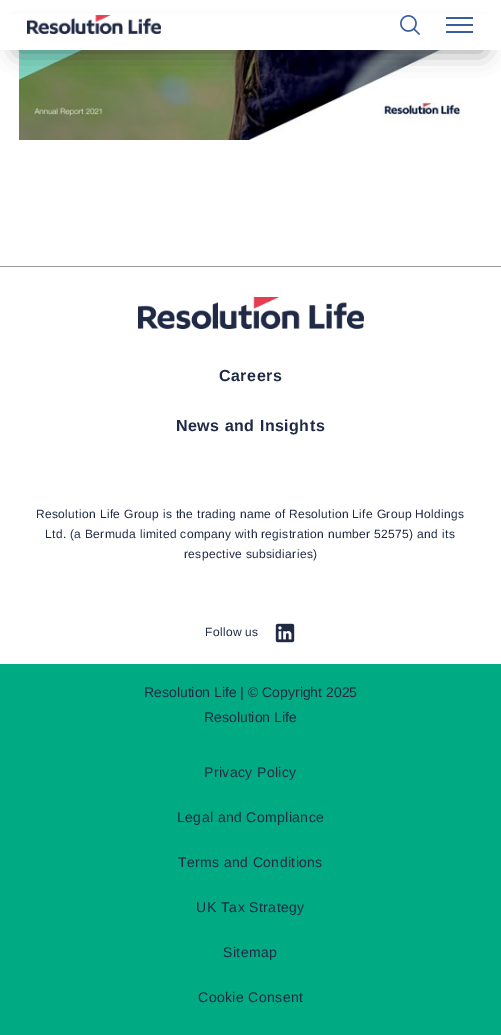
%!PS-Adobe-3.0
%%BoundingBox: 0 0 501 1035
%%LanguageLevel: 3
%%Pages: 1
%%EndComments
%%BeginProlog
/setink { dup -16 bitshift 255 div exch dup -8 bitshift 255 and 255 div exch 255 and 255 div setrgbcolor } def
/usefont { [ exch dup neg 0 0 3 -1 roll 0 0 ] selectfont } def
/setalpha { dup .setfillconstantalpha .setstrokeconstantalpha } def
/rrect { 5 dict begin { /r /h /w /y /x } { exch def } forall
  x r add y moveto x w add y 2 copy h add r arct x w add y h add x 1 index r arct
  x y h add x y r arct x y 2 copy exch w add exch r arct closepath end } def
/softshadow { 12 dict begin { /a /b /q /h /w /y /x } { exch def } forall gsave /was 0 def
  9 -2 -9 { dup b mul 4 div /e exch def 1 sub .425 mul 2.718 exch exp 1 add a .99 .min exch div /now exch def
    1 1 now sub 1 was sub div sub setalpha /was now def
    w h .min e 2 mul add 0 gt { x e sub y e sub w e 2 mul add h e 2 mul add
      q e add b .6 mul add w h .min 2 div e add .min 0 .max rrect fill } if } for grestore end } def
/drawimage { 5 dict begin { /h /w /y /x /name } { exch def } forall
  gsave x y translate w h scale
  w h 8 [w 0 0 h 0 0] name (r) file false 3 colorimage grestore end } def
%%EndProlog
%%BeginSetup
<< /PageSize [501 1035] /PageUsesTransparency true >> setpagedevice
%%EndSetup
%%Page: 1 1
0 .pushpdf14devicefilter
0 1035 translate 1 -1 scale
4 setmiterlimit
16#FFFFFF setink
0 0 501 1035 rectfill
(img3.raw) 19 50 463 90 drawimage
16#000000 setink
18 37 465 14 7 12 0.4 softshadow
16#FFFFFF setink
0 14 501 36 rectfill
(img1.raw) 27 15 134 19 drawimage
(img2.raw) 400 15 20 20 drawimage
[
    [446 17 27 2 16#385E9D]
    [446 24 27 2 16#385E9D]
    [446 31 27 2 16#385E9D]
    [0 266 501 1 16#999999]
] { aload pop setink rectfill } forall
(img4.raw) 138 297 226 32 drawimage
/LiberationSans-Bold 16 usefont
16#202A44 setink
219 381 moveto 0.5 0 (Careers) ashow
176 431 moveto 0.5 0 (News and Insights) ashow
/LiberationSans-Regular 12 usefont
36 518 moveto 0.33 0 (Resolution Life Group is the trading name of Resolution Life Group Holdings) ashow
45 538 moveto 0.33 0 (Ltd. \(a Bermuda limited company with registration number 52575\) and its) ashow
184 558 moveto 0.33 0 (respective subsidiaries\)) ashow
205 636 moveto 0.33 0 (Follow us) ashow
(img5.raw) 275 623 20 20 drawimage
16#00AB84 setink
0 664 501 371 rectfill
/LiberationSans-Regular 14 usefont
16#202A44 setink
144 697 moveto (Resolution Life | © Copyright 2025) show
204 722 moveto (Resolution Life) show
204 777 moveto 0.4 0 (Privacy Policy) ashow
177 822 moveto 0.4 0 (Legal and Compliance) ashow
178 867 moveto 0.4 0 (Terms and Conditions) ashow
196 912 moveto 0.4 0 (UK Tax Strategy) ashow
223 957 moveto 0.4 0 (Sitemap) ashow
198 1002 moveto 0.4 0 (Cookie Consent) ashow
.poppdf14devicefilter showpage
%%EOF
